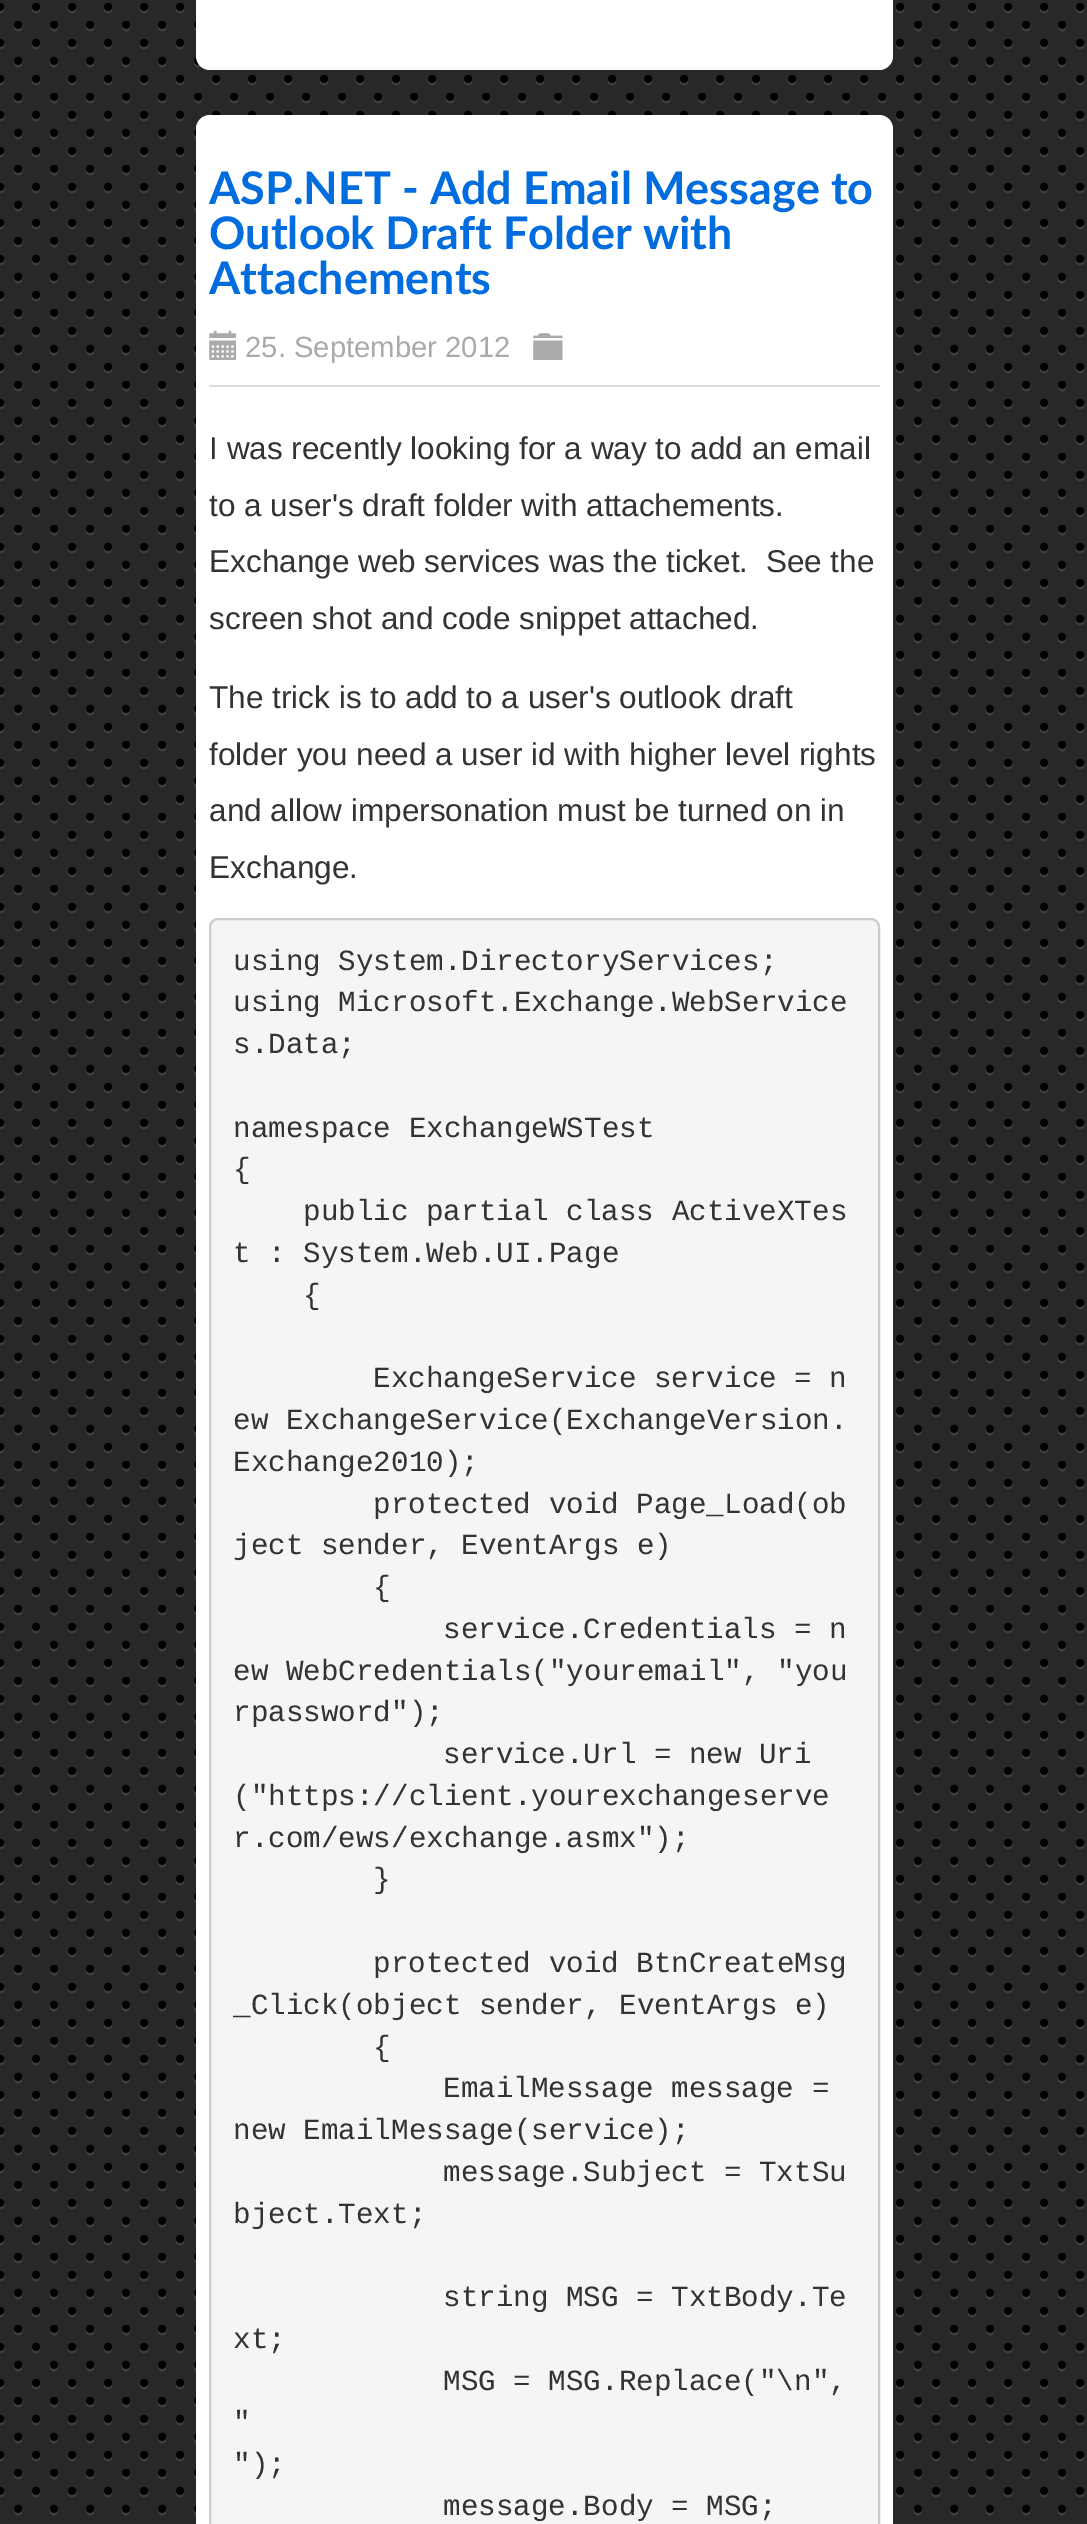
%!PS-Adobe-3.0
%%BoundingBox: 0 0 1087 2524
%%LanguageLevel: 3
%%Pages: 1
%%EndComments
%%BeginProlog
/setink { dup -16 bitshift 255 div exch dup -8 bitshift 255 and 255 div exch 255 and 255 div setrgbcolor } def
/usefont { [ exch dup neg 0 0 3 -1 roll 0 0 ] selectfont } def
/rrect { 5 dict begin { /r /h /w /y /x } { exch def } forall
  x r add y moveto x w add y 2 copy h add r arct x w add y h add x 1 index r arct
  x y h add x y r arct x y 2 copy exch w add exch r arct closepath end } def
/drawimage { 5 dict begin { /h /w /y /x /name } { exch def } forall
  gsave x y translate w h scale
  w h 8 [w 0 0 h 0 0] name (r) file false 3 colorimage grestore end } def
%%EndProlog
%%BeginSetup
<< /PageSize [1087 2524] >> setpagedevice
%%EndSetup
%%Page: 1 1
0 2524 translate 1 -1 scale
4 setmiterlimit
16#282828 setink
0 0 1087 2524 rectfill
16#3E3E3E setink
8.9 setlinewidth
1 setlinecap
[0 36] 0 setdash
0 9 moveto 0 2493.5 lineto stroke
36 9 moveto 36 2493.5 lineto stroke
72 9 moveto 72 2493.5 lineto stroke
108 9 moveto 108 2493.5 lineto stroke
144 9 moveto 144 2493.5 lineto stroke
180 9 moveto 180 2493.5 lineto stroke
216 9 moveto 216 2493.5 lineto stroke
252 9 moveto 252 2493.5 lineto stroke
288 9 moveto 288 2493.5 lineto stroke
324 9 moveto 324 2493.5 lineto stroke
360 9 moveto 360 2493.5 lineto stroke
396 9 moveto 396 2493.5 lineto stroke
432 9 moveto 432 2493.5 lineto stroke
468 9 moveto 468 2493.5 lineto stroke
504 9 moveto 504 2493.5 lineto stroke
540 9 moveto 540 2493.5 lineto stroke
576 9 moveto 576 2493.5 lineto stroke
612 9 moveto 612 2493.5 lineto stroke
648 9 moveto 648 2493.5 lineto stroke
684 9 moveto 684 2493.5 lineto stroke
720 9 moveto 720 2493.5 lineto stroke
756 9 moveto 756 2493.5 lineto stroke
792 9 moveto 792 2493.5 lineto stroke
828 9 moveto 828 2493.5 lineto stroke
864 9 moveto 864 2493.5 lineto stroke
900 9 moveto 900 2493.5 lineto stroke
936 9 moveto 936 2493.5 lineto stroke
972 9 moveto 972 2493.5 lineto stroke
1008 9 moveto 1008 2493.5 lineto stroke
1044 9 moveto 1044 2493.5 lineto stroke
1080 9 moveto 1080 2493.5 lineto stroke
18 27 moveto 18 2511.5 lineto stroke
54 27 moveto 54 2511.5 lineto stroke
90 27 moveto 90 2511.5 lineto stroke
126 27 moveto 126 2511.5 lineto stroke
162 27 moveto 162 2511.5 lineto stroke
198 27 moveto 198 2511.5 lineto stroke
234 27 moveto 234 2511.5 lineto stroke
270 27 moveto 270 2511.5 lineto stroke
306 27 moveto 306 2511.5 lineto stroke
342 27 moveto 342 2511.5 lineto stroke
378 27 moveto 378 2511.5 lineto stroke
414 27 moveto 414 2511.5 lineto stroke
450 27 moveto 450 2511.5 lineto stroke
486 27 moveto 486 2511.5 lineto stroke
522 27 moveto 522 2511.5 lineto stroke
558 27 moveto 558 2511.5 lineto stroke
594 27 moveto 594 2511.5 lineto stroke
630 27 moveto 630 2511.5 lineto stroke
666 27 moveto 666 2511.5 lineto stroke
702 27 moveto 702 2511.5 lineto stroke
738 27 moveto 738 2511.5 lineto stroke
774 27 moveto 774 2511.5 lineto stroke
810 27 moveto 810 2511.5 lineto stroke
846 27 moveto 846 2511.5 lineto stroke
882 27 moveto 882 2511.5 lineto stroke
918 27 moveto 918 2511.5 lineto stroke
954 27 moveto 954 2511.5 lineto stroke
990 27 moveto 990 2511.5 lineto stroke
1026 27 moveto 1026 2511.5 lineto stroke
1062 27 moveto 1062 2511.5 lineto stroke
16#000000 setink
7.9 setlinewidth
0 6.8 moveto 0 2491.2 lineto stroke
36 6.8 moveto 36 2491.2 lineto stroke
72 6.8 moveto 72 2491.2 lineto stroke
108 6.8 moveto 108 2491.2 lineto stroke
144 6.8 moveto 144 2491.2 lineto stroke
180 6.8 moveto 180 2491.2 lineto stroke
216 6.8 moveto 216 2491.2 lineto stroke
252 6.8 moveto 252 2491.2 lineto stroke
288 6.8 moveto 288 2491.2 lineto stroke
324 6.8 moveto 324 2491.2 lineto stroke
360 6.8 moveto 360 2491.2 lineto stroke
396 6.8 moveto 396 2491.2 lineto stroke
432 6.8 moveto 432 2491.2 lineto stroke
468 6.8 moveto 468 2491.2 lineto stroke
504 6.8 moveto 504 2491.2 lineto stroke
540 6.8 moveto 540 2491.2 lineto stroke
576 6.8 moveto 576 2491.2 lineto stroke
612 6.8 moveto 612 2491.2 lineto stroke
648 6.8 moveto 648 2491.2 lineto stroke
684 6.8 moveto 684 2491.2 lineto stroke
720 6.8 moveto 720 2491.2 lineto stroke
756 6.8 moveto 756 2491.2 lineto stroke
792 6.8 moveto 792 2491.2 lineto stroke
828 6.8 moveto 828 2491.2 lineto stroke
864 6.8 moveto 864 2491.2 lineto stroke
900 6.8 moveto 900 2491.2 lineto stroke
936 6.8 moveto 936 2491.2 lineto stroke
972 6.8 moveto 972 2491.2 lineto stroke
1008 6.8 moveto 1008 2491.2 lineto stroke
1044 6.8 moveto 1044 2491.2 lineto stroke
1080 6.8 moveto 1080 2491.2 lineto stroke
18 24.8 moveto 18 2509.2 lineto stroke
54 24.8 moveto 54 2509.2 lineto stroke
90 24.8 moveto 90 2509.2 lineto stroke
126 24.8 moveto 126 2509.2 lineto stroke
162 24.8 moveto 162 2509.2 lineto stroke
198 24.8 moveto 198 2509.2 lineto stroke
234 24.8 moveto 234 2509.2 lineto stroke
270 24.8 moveto 270 2509.2 lineto stroke
306 24.8 moveto 306 2509.2 lineto stroke
342 24.8 moveto 342 2509.2 lineto stroke
378 24.8 moveto 378 2509.2 lineto stroke
414 24.8 moveto 414 2509.2 lineto stroke
450 24.8 moveto 450 2509.2 lineto stroke
486 24.8 moveto 486 2509.2 lineto stroke
522 24.8 moveto 522 2509.2 lineto stroke
558 24.8 moveto 558 2509.2 lineto stroke
594 24.8 moveto 594 2509.2 lineto stroke
630 24.8 moveto 630 2509.2 lineto stroke
666 24.8 moveto 666 2509.2 lineto stroke
702 24.8 moveto 702 2509.2 lineto stroke
738 24.8 moveto 738 2509.2 lineto stroke
774 24.8 moveto 774 2509.2 lineto stroke
810 24.8 moveto 810 2509.2 lineto stroke
846 24.8 moveto 846 2509.2 lineto stroke
882 24.8 moveto 882 2509.2 lineto stroke
918 24.8 moveto 918 2509.2 lineto stroke
954 24.8 moveto 954 2509.2 lineto stroke
990 24.8 moveto 990 2509.2 lineto stroke
1026 24.8 moveto 1026 2509.2 lineto stroke
1062 24.8 moveto 1062 2509.2 lineto stroke
16#FFFFFF setink
196 -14 697 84 14 rrect fill
196 115 697 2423 14 rrect fill
16#DDDDDD setink
209 385 671 2 rectfill
/Lato-Bold 45 usefont
16#006CDE setink
[
    [(ASP.NET - Add Email Message to) 209 204]
    [(Outlook Draft Folder with) 209 249]
    [(Attachements) 209 294]
] { aload pop moveto show } forall
(img1.raw) 209 330 28 30 drawimage
/LiberationSans-Regular 29.25 usefont
16#AAAAAA setink
245 357 moveto (25. September 2012) show
(img2.raw) 533 333 30 27 drawimage
/LiberationSans-Regular 31.5 usefont
16#333333 setink
[
    [(I was recently looking for a way to add an email) 209 459]
    [(to a user's draft folder with attachements.) 209 516]
    [(Exchange web services was the ticket.  See the) 209 572]
    [(screen shot and code snippet attached.) 209 629]
    [(The trick is to add to a user's outlook draft) 209 708]
    [(folder you need a user id with higher level rights) 209 765]
    [(and allow impersonation must be turned on in) 209 821]
    [(Exchange.) 209 878]
] { aload pop moveto show } forall
16#F5F5F5 setink
210 919 669 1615 8 rrect gsave fill grestore
16#CCCCCC setink
2 setlinewidth
0 setlinecap
[] 0 setdash
stroke
/LiberationMono-Regular 29.25 usefont
16#333333 setink
[
    [(using System.DirectoryServices;) 233 970]
    [(using Microsoft.Exchange.WebService) 233 1011]
    [(s.Data;) 233 1053]
    [(namespace ExchangeWSTest) 233 1137]
    [({) 233 1178]
    [(public partial class ActiveXTes) 303 1220]
    [(t : System.Web.UI.Page) 233 1262]
    [({) 303 1304]
    [(ExchangeService service = n) 373 1387]
    [(ew ExchangeService\(ExchangeVersion.) 233 1429]
    [(Exchange2010\);) 233 1471]
    [(protected void Page_Load\(ob) 373 1513]
    [(ject sender, EventArgs e\)) 233 1554]
    [({) 373 1596]
    [(service.Credentials = n) 443 1638]
    [(ew WebCredentials\("youremail", "you) 233 1680]
    [(rpassword"\);) 233 1721]
    [(service.Url = new Uri) 443 1763]
    [(\("https://client.yourexchangeserve) 233 1805]
    [(r.com/ews/exchange.asmx"\);) 233 1847]
    [(}) 373 1888]
    [(protected void BtnCreateMsg) 373 1972]
    [(_Click\(object sender, EventArgs e\)) 233 2014]
    [({) 373 2056]
    [(EmailMessage message =) 443 2097]
    [(new EmailMessage\(service\);) 233 2139]
    [(message.Subject = TxtSu) 443 2181]
    [(bject.Text;) 233 2223]
    [(string MSG = TxtBody.Te) 443 2306]
    [(xt;) 233 2348]
    [(MSG = MSG.Replace\("\\n",) 443 2390]
    [(") 233 2431]
    [("\);) 233 2473]
    [(message.Body = MSG;) 443 2515]
] { aload pop moveto show } forall
showpage
%%EOF
